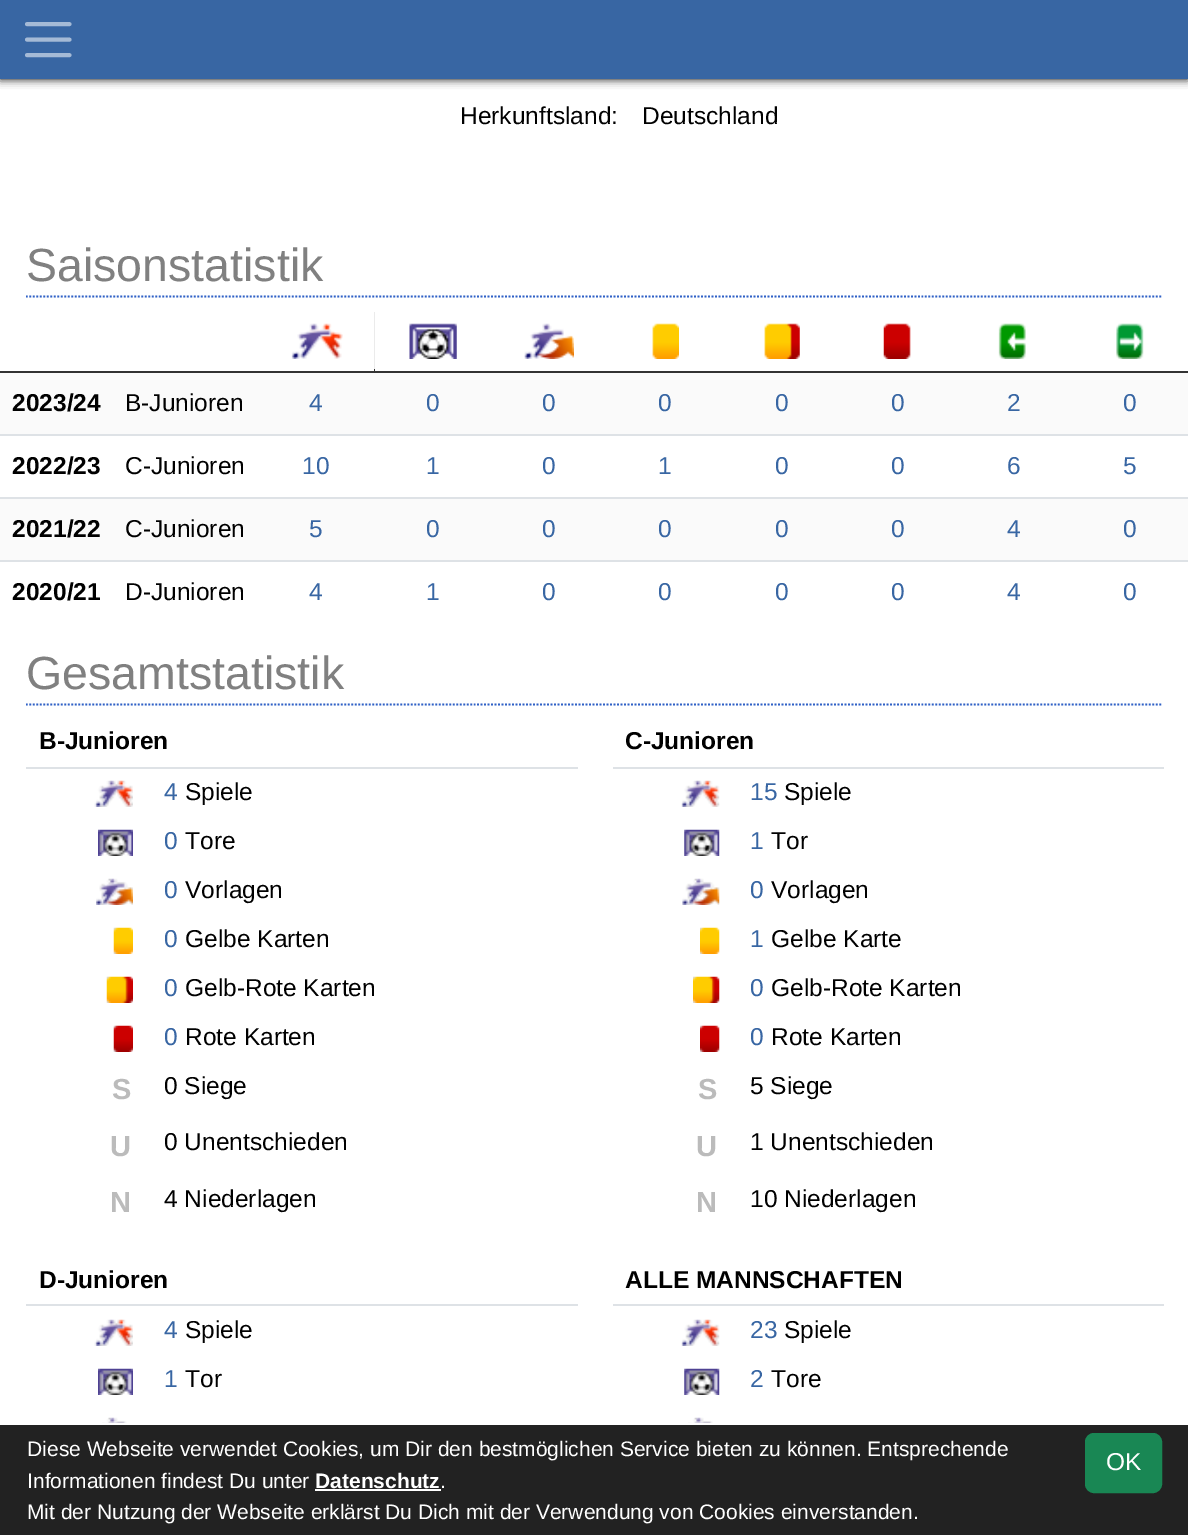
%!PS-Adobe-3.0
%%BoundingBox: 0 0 1188 1535
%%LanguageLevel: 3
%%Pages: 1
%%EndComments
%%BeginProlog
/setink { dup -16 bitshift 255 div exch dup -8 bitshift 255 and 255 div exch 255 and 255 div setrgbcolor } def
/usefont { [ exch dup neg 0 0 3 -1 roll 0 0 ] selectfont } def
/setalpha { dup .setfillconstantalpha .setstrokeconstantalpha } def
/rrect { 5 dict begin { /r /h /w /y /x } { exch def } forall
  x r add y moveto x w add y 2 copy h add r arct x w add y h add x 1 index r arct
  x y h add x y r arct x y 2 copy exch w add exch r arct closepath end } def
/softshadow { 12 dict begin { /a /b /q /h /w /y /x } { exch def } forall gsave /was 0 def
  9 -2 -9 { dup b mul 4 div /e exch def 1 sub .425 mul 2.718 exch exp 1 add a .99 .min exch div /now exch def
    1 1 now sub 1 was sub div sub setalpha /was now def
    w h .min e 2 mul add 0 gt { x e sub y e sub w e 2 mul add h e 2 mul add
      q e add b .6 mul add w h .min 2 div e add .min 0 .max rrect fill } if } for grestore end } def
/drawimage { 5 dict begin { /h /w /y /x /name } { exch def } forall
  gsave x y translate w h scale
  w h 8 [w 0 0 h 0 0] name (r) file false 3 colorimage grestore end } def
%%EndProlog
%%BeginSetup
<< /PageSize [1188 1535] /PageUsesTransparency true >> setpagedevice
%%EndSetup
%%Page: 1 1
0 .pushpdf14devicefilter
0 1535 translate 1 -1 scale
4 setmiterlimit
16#FFFFFF setink
0 0 1188 1535 rectfill
16#000000 setink
0 0 1188 79 0 4.5 1 softshadow
16#3866A3 setink
0 0 1188 79 rectfill
16#A5BAD6 setink
3.9 setlinewidth
1 setlinecap
27 24 moveto 69.5 24 lineto 27 39.5 moveto 69.5 39.5 lineto 27 55 moveto 69.5 55 lineto stroke
/LiberationSans-Regular 24.5 usefont
16#000000 setink
460 124 moveto (Herkunftsland:) show
642 124 moveto (Deutschland) show
16#3061C6 setink
1.8 setlinewidth
0 setlinecap
[1.75 1.75] 0 setdash
26 296.5 moveto 1162 296.5 lineto stroke
/LiberationSans-Regular 46.5 usefont
16#808080 setink
26 281 moveto (Saisonstatistik) show
16#333333 setink
257 312 moveto 257 373 lineto 375 373 lineto 375 312 lineto 374 312 lineto 374 371 lineto 257 371 lineto closepath fill
0.9 setalpha
16#FFFFFF setink
374 312 1 57 rectfill
1 setalpha
(img1.raw) 291 323 52 36 drawimage
16#333333 setink
375 371 232 2 rectfill
(img2.raw) 409 323 48 36 drawimage
0 371 moveto 0 373 lineto 114 373 lineto 114 312 lineto 114 371 lineto closepath fill
114 371 143 2 rectfill
(img3.raw) 524 323 50 36 drawimage
607 312 moveto 607 373 lineto 723 373 lineto 723 312 lineto 723 371 lineto 607 371 lineto closepath fill
(img4.raw) 652 323 27 36 drawimage
723 371 117 2 rectfill
(img5.raw) 764 323 36 36 drawimage
840 371 moveto 840 373 lineto 956 373 lineto 956 312 lineto 956 371 lineto closepath fill
(img6.raw) 883 323 28 36 drawimage
956 371 moveto 956 373 lineto 1073 373 lineto 1073 312 lineto 1073 371 lineto closepath fill
(img7.raw) 998 323 28 36 drawimage
1073 371 115 2 rectfill
(img8.raw) 1116 323 28 36 drawimage
16#FAFAFA setink
0 373 1188 61 rectfill
/LiberationSans-Bold 24.5 usefont
16#000000 setink
12 411 moveto (2023/24) show
/LiberationSans-Regular 24.5 usefont
125 411 moveto (B-Junioren) show
16#3866A3 setink
[
    [(4) 309 411]
    [(0) 426 411]
    [(0) 542 411]
    [(0) 658 411]
    [(0) 775 411]
    [(0) 891 411]
    [(2) 1007 411]
    [(0) 1123 411]
] { aload pop moveto show } forall
16#DEE2E6 setink
0 434 1188 2 rectfill
/LiberationSans-Bold 24.5 usefont
16#000000 setink
12 474 moveto (2022/23) show
/LiberationSans-Regular 24.5 usefont
125 474 moveto (C-Junioren) show
16#3866A3 setink
[
    [(10) 302 474]
    [(1) 426 474]
    [(0) 542 474]
    [(1) 658 474]
    [(0) 775 474]
    [(0) 891 474]
    [(6) 1007 474]
    [(5) 1123 474]
] { aload pop moveto show } forall
16#DEE2E6 setink
0 497 1188 2 rectfill
16#FAFAFA setink
0 499 1188 61 rectfill
/LiberationSans-Bold 24.5 usefont
16#000000 setink
12 537 moveto (2021/22) show
/LiberationSans-Regular 24.5 usefont
125 537 moveto (C-Junioren) show
16#3866A3 setink
[
    [(5) 309 537]
    [(0) 426 537]
    [(0) 542 537]
    [(0) 658 537]
    [(0) 775 537]
    [(0) 891 537]
    [(4) 1007 537]
    [(0) 1123 537]
] { aload pop moveto show } forall
16#DEE2E6 setink
0 560 1188 2 rectfill
/LiberationSans-Bold 24.5 usefont
16#000000 setink
12 600 moveto (2020/21) show
/LiberationSans-Regular 24.5 usefont
125 600 moveto (D-Junioren) show
16#3866A3 setink
[
    [(4) 309 600]
    [(1) 426 600]
    [(0) 542 600]
    [(0) 658 600]
    [(0) 775 600]
    [(0) 891 600]
    [(4) 1007 600]
    [(0) 1123 600]
] { aload pop moveto show } forall
16#3061C6 setink
26 704.5 moveto 1162 704.5 lineto stroke
/LiberationSans-Regular 46.5 usefont
16#808080 setink
26 689 moveto (Gesamtstatistik) show
16#DEE2E6 setink
26 767 552 2 rectfill
/LiberationSans-Bold 24.5 usefont
16#000000 setink
39 749 moveto (B-Junioren) show
(img9.raw) 94 780 39 27 drawimage
/LiberationSans-Regular 24.5 usefont
16#3866A3 setink
164 800 moveto (4) show
16#000000 setink
185 800 moveto (Spiele) show
(img10.raw) 98 829 35 27 drawimage
16#3866A3 setink
164 849 moveto (0) show
16#000000 setink
185 849 moveto (Tore) show
(img11.raw) 96 878 37 27 drawimage
16#3866A3 setink
164 898 moveto (0) show
16#000000 setink
185 898 moveto (Vorlagen) show
(img12.raw) 113 927 20 27 drawimage
16#3866A3 setink
164 947 moveto (0) show
16#000000 setink
185 947 moveto (Gelbe Karten) show
(img13.raw) 106 976 27 27 drawimage
16#3866A3 setink
164 996 moveto (0) show
16#000000 setink
185 996 moveto (Gelb-Rote Karten) show
(img14.raw) 113 1025 20 27 drawimage
16#3866A3 setink
164 1045 moveto (0) show
16#000000 setink
185 1045 moveto (Rote Karten) show
/LiberationSans-Bold 29 usefont
16#BBBBBB setink
112 1099 moveto (S) show
/LiberationSans-Regular 24.5 usefont
16#000000 setink
164 1094 moveto (0 Siege) show
/LiberationSans-Bold 29 usefont
16#BBBBBB setink
110 1156 moveto (U) show
/LiberationSans-Regular 24.5 usefont
16#000000 setink
164 1150 moveto (0 Unentschieden) show
/LiberationSans-Bold 29 usefont
16#BBBBBB setink
110 1212 moveto (N) show
/LiberationSans-Regular 24.5 usefont
16#000000 setink
164 1207 moveto (4 Niederlagen) show
16#DEE2E6 setink
613 767 551 2 rectfill
/LiberationSans-Bold 24.5 usefont
16#000000 setink
625 749 moveto (C-Junioren) show
(img15.raw) 681 780 39 27 drawimage
/LiberationSans-Regular 24.5 usefont
16#3866A3 setink
750 800 moveto (15) show
16#000000 setink
784 800 moveto (Spiele) show
(img16.raw) 684 829 36 27 drawimage
16#3866A3 setink
750 849 moveto (1) show
16#000000 setink
771 849 moveto (Tor) show
(img17.raw) 682 878 38 27 drawimage
16#3866A3 setink
750 898 moveto (0) show
16#000000 setink
771 898 moveto (Vorlagen) show
(img18.raw) 700 927 20 27 drawimage
16#3866A3 setink
750 947 moveto (1) show
16#000000 setink
771 947 moveto (Gelbe Karte) show
(img19.raw) 693 976 27 27 drawimage
16#3866A3 setink
750 996 moveto (0) show
16#000000 setink
771 996 moveto (Gelb-Rote Karten) show
(img20.raw) 700 1025 20 27 drawimage
16#3866A3 setink
750 1045 moveto (0) show
16#000000 setink
771 1045 moveto (Rote Karten) show
/LiberationSans-Bold 29 usefont
16#BBBBBB setink
698 1099 moveto (S) show
/LiberationSans-Regular 24.5 usefont
16#000000 setink
750 1094 moveto (5 Siege) show
/LiberationSans-Bold 29 usefont
16#BBBBBB setink
696 1156 moveto (U) show
/LiberationSans-Regular 24.5 usefont
16#000000 setink
750 1150 moveto (1 Unentschieden) show
/LiberationSans-Bold 29 usefont
16#BBBBBB setink
696 1212 moveto (N) show
/LiberationSans-Regular 24.5 usefont
16#000000 setink
750 1207 moveto (10 Niederlagen) show
16#DEE2E6 setink
26 1304 552 2 rectfill
/LiberationSans-Bold 24.5 usefont
16#000000 setink
39 1288 moveto (D-Junioren) show
(img9.raw) 94 1319 39 27 drawimage
/LiberationSans-Regular 24.5 usefont
16#3866A3 setink
164 1338 moveto (4) show
16#000000 setink
185 1338 moveto (Spiele) show
(img10.raw) 98 1368 35 27 drawimage
16#3866A3 setink
164 1387 moveto (1) show
16#000000 setink
185 1387 moveto (Tor) show
(img21.raw) 102 1417 25 6 drawimage
16#DEE2E6 setink
613 1304 551 2 rectfill
/LiberationSans-Bold 24.5 usefont
16#000000 setink
625 1288 moveto (ALLE MANNSCHAFTEN) show
(img15.raw) 681 1319 39 27 drawimage
/LiberationSans-Regular 24.5 usefont
16#3866A3 setink
750 1338 moveto (23) show
16#000000 setink
784 1338 moveto (Spiele) show
(img16.raw) 684 1368 36 27 drawimage
16#3866A3 setink
750 1387 moveto (2) show
16#000000 setink
771 1387 moveto (Tore) show
(img22.raw) 688 1417 25 6 drawimage
16#222222 setink
0 1425 1188 110 rectfill
/LiberationSans-Regular 21 usefont
16#FFFFFF setink
27 1456 moveto (Diese Webseite verwendet Cookies, um Dir den bestmöglichen Service bieten zu können. Entsprechende) show
27 1488 moveto (Informationen findest Du unter) show
/LiberationSans-Bold 21 usefont
315 1488 moveto (Datenschutz) show
315 1489 126 2 rectfill
/LiberationSans-Regular 21 usefont
440 1488 moveto (.) show
27 1519 moveto (Mit der Nutzung der Webseite erklärst Du Dich mit der Verwendung von Cookies einverstanden.) show
16#198754 setink
1086 1434 75 58 8 rrect gsave fill grestore
2 setlinewidth
[] 0 setdash
stroke
/LiberationSans-Regular 24.5 usefont
16#FFFFFF setink
1106 1470 moveto (OK) show
.poppdf14devicefilter showpage
%%EOF
